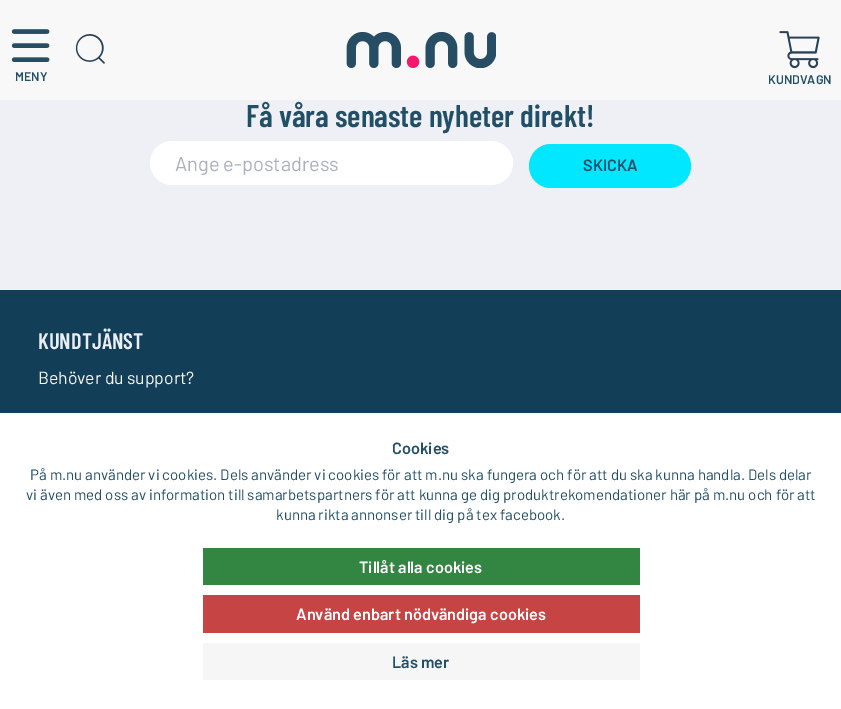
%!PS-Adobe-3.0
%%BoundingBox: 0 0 841 709
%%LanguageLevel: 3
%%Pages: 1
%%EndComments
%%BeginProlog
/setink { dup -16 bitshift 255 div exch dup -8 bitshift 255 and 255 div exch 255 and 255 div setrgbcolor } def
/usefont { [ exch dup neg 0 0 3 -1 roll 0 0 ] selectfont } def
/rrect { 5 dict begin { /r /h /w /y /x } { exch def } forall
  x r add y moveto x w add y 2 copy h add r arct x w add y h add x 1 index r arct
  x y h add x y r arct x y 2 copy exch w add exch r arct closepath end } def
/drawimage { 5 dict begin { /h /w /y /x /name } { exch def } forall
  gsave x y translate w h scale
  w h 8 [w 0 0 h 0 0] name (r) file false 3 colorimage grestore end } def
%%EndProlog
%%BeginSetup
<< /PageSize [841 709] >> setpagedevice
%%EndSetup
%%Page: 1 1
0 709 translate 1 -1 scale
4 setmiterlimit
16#123E58 setink
0 0 841 709 rectfill
16#F8F8F8 setink
0 0 841 100 rectfill
(img1.raw) 346 32 150 36 drawimage
(img2.raw) 75 34 30 30 drawimage
(img3.raw) 11 29 39 33 drawimage
/Barlow-SemiBold 12.5 usefont
16#224F68 setink
15 81 moveto (MENY) show
(img4.raw) 779 31 41 38 drawimage
768 84 moveto (KUNDVAGN) show
16#EEF0F6 setink
0 100 841 190 rectfill
/BarlowCondensed-SemiBold 31.25 usefont
16#224F68 setink
246 127 moveto (Få våra senaste nyheter direkt!) show
16#FFFFFF setink
150 141 363 44 22 rrect fill
/Barlow-Regular 20 usefont
16#ABB0BD setink
175 171 moveto (Ange e-postadress) show
16#00E7FF setink
529 144 162 44 22 rrect fill
/Barlow-SemiBold 16.25 usefont
16#224F68 setink
583 171 moveto (SKICKA) show
/BarlowCondensed-SemiBold 22.5 usefont
16#EAEEF5 setink
38 349 moveto (KUNDTJÄNST) show
/Barlow-Regular 17.5 usefont
16#F8F8F8 setink
38 384 moveto (Behöver du support?) show
16#FFFFFF setink
0 413 841 296 rectfill
/Barlow-SemiBold 16.25 usefont
16#224F68 setink
392 454 moveto (Cookies) show
/Barlow-Regular 15 usefont
[
    [(På m.nu använder vi cookies. Dels använder vi cookies för att m.nu ska fungera och för att du ska kunna handla. Dels delar) 30 480]
    [(vi även med oss av information till samarbetspartners för att kunna ge dig produktrekomendationer här på m.nu och för att) 26 500]
    [(kunna rikta annonser till dig på tex facebook.) 276 520]
] { aload pop moveto show } forall
16#338642 setink
203 548 437 37 rectfill
/Barlow-SemiBold 16.25 usefont
16#FFFFFF setink
359 573 moveto (Tillåt alla cookies) show
16#C64444 setink
203 595 437 38 rectfill
16#FFFFFF setink
296 620 moveto (Använd enbart nödvändiga cookies) show
16#F6F6F6 setink
203 643 437 37 rectfill
16#224F68 setink
392 668 moveto (Läs mer) show
showpage
%%EOF
